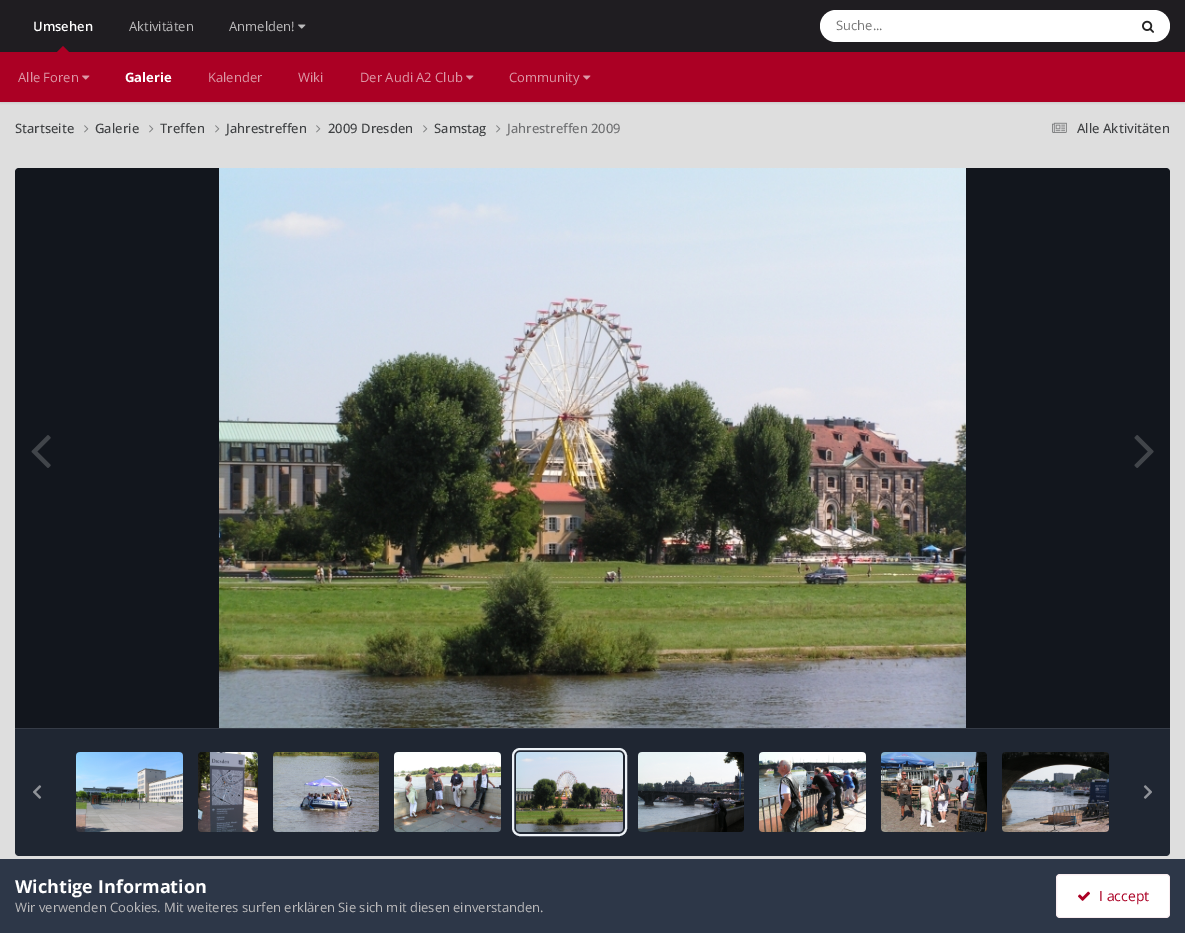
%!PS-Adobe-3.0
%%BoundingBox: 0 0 1185 933
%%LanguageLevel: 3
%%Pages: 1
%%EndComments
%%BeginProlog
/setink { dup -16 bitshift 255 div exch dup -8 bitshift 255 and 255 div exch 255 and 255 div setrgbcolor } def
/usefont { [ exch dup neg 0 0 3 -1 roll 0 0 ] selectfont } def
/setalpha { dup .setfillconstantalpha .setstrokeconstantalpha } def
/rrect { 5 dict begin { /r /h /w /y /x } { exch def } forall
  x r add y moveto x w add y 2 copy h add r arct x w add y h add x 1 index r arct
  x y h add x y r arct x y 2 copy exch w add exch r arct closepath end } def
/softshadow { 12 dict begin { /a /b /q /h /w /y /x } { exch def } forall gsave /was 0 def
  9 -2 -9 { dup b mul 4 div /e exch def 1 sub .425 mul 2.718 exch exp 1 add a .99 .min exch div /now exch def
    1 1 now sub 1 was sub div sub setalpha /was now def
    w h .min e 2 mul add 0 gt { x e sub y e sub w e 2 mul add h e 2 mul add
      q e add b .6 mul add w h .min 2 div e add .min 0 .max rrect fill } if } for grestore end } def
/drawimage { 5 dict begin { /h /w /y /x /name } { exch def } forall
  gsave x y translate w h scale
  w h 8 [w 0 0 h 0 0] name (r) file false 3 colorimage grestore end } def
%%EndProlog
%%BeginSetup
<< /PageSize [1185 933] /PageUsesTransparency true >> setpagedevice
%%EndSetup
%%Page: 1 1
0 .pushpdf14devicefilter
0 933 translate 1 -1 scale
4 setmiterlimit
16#DEDEDE setink
0 0 1185 933 rectfill
16#1F1D21 setink
0 0 1185 52 rectfill
/OpenSans-SemiBold 13 usefont
16#FFFFFF setink
33 31 moveto (Umsehen) show
16#000000 setink
0 53 1185 50 0 1 0.1 softshadow
16#AB0024 setink
69 52 moveto 57 52 lineto 63 46 lineto closepath fill
0 52 1185 50 rectfill
/OpenSans-Regular 13 usefont
16#DD99A7 setink
18 82 moveto (Alle Foren) show
(img1.raw) 82 75 8 5 drawimage
/OpenSans-Bold 13 usefont
16#FFFFFF setink
125 82 moveto (Galerie) show
/OpenSans-Regular 13 usefont
16#DD99A7 setink
[
    [(Kalender) 208 82]
    [(Wiki) 298 82]
    [(Der Audi A2 Club) 360 82]
] { aload pop moveto show } forall
(img1.raw) 466 75 8 5 drawimage
509 82 moveto (Community) show
(img1.raw) 583 75 8 5 drawimage
16#BCBBBC setink
129 31 moveto (Aktivitäten) show
229 31 moveto (Anmelden!) show
(img2.raw) 298 24 8 5 drawimage
16#FFFFFF setink
820 10 350 32 16 rrect fill
16#757575 setink
836 30 moveto (Suche...) show
(img3.raw) 1142 20 12 13 drawimage
/OpenSans-Medium 13 usefont
16#3F4143 setink
15 133 moveto (Startseite) show
(img4.raw) 84 125 5 8 drawimage
95 133 moveto (Galerie) show
(img4.raw) 149 125 5 8 drawimage
160 133 moveto (Treffen) show
(img4.raw) 215 125 5 8 drawimage
226 133 moveto (Jahrestreffen) show
(img4.raw) 316 125 5 8 drawimage
328 133 moveto (2009 Dresden) show
(img4.raw) 423 125 5 8 drawimage
434 133 moveto (Samstag) show
(img4.raw) 496 125 5 8 drawimage
16#6F7072 setink
507 133 moveto (Jahrestreffen 2009) show
(img5.raw) 1052 122 15 11 drawimage
16#3F4143 setink
1077 133 moveto (Alle Aktivitäten) show
16#2D3748 setink
19 168 moveto 1166 168 lineto 1168 168 1170 170 1170 172 curveto 1170 728 lineto 15 728 lineto 15 172 lineto 15 170 17 168 19 168 curveto closepath fill
0.6 setalpha
16#000000 setink
19 168 moveto 1166 168 lineto 1168 168 1170 170 1170 172 curveto 1170 728 lineto 15 728 lineto 15 172 lineto 15 170 17 168 19 168 curveto closepath fill
1 setalpha
(img6.raw) 219 168 747 560 drawimage
(img7.raw) 31 435 20 33 drawimage
(img8.raw) 1134 435 20 33 drawimage
16#2D3748 setink
15 728 moveto 1170 728 lineto 1170 852 lineto 1170 854 1168 856 1166 856 curveto 19 856 lineto 17 856 15 854 15 852 curveto closepath fill
0.3 setalpha
16#000000 setink
15 728 moveto 1170 728 lineto 1170 852 lineto 1170 854 1168 856 1166 856 curveto 19 856 lineto 17 856 15 854 15 852 curveto closepath fill
1 setalpha
16#363C47 setink
15 728 1155 1 rectfill
(img9.raw) 76 752 107 80 drawimage
(img10.raw) 198 752 60 80 drawimage
(img11.raw) 273 752 106 80 drawimage
(img12.raw) 394 752 107 80 drawimage
16#EDF2F7 setink
2 setlinewidth
513 749 113 86 7 rrect stroke
(img13.raw) 516 752 107 80 drawimage
(img14.raw) 638 752 106 80 drawimage
(img15.raw) 759 752 107 80 drawimage
(img16.raw) 881 752 106 80 drawimage
(img17.raw) 1002 752 107 80 drawimage
(img18.raw) 33 785 9 14 drawimage
(img19.raw) 1143 785 9 14 drawimage
16#2D3748 setink
0 859 1185 74 rectfill
/OpenSans-Bold 18 usefont
16#FFFFFF setink
15 893 moveto (Wichtige Information) show
/OpenSans-Regular 13 usefont
16#BCBBBC setink
15 912 moveto (Wir verwenden Cookies. Mit weiteres surfen erklären Sie sich mit diesen einverstanden.) show
16#FFFFFF setink
1056 874 114 44 4 rrect fill
0.07 setalpha
16#AB0024 setink
1 setlinewidth
1056.5 874.5 113 43 3.5 rrect stroke
1 setalpha
(img20.raw) 1078 891 12 10 drawimage
/OpenSans-Regular 14 usefont
1099 901 moveto (I accept) show
.poppdf14devicefilter showpage
%%EOF
